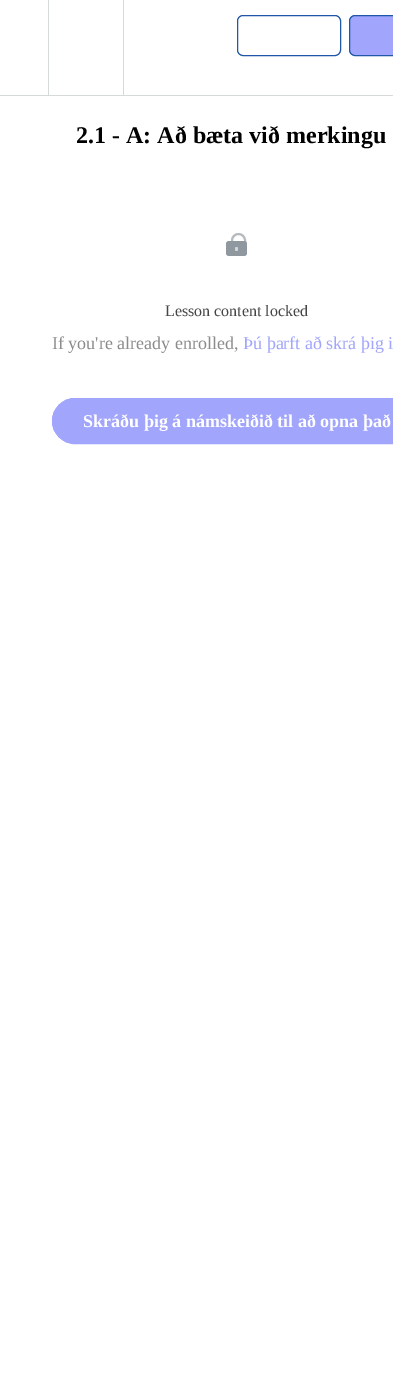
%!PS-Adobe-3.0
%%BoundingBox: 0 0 393 1377
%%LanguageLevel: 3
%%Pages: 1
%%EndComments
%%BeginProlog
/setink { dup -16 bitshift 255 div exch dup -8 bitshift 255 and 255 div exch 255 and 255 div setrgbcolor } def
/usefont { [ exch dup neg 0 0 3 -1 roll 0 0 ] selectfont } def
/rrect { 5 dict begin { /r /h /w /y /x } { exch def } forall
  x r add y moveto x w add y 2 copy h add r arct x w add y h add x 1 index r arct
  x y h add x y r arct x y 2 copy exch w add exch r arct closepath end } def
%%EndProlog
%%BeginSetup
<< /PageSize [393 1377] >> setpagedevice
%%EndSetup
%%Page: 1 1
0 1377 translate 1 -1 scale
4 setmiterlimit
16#FFFFFF setink
0 0 393 1377 rectfill
[
    [0 95 393 1 16#D7DADB]
    [123 0 1 95 16#D7DADB]
    [48 0 1 95 16#D7DADB]
] { aload pop setink rectfill } forall
16#2057A8 setink
237.5 15.5 103 40 5.5 rrect stroke
16#A1A5FC setink
349.5 15.5 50 40 5.5 rrect gsave fill grestore
16#2057A8 setink
stroke
/LiberationSerif-Bold 24 usefont
16#000000 setink
76 143 moveto (2.1 - A: Að bæta við merkingu) show
16#B5BABF setink
2 setlinewidth
232 234 13 20 6.5 rrect stroke
16#8F989F setink
226 241 21 15 3 rrect fill
16#D3D7DC setink
235 247 3 4 1.5 rrect fill
/LiberationSerif-Regular 16 usefont
16#454545 setink
165 316 moveto (Lesson content locked) show
/LiberationSerif-Regular 18 usefont
16#8B8B8B setink
52 349 moveto (If you're already enrolled,) show
16#A1A5FC setink
243 349 moveto (Þú þarft að skrá þig i) show
75 398 moveto 393 398 lineto 393 444 lineto 75 444 lineto 62.5 444 52 433.5 52 421 curveto 52 408.5 62.5 398 75 398 curveto closepath fill
1 setlinewidth
52.5 398.5 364 45 22.5 rrect stroke
/LiberationSerif-Bold 18 usefont
16#FFFFFF setink
83 427 moveto (Skráðu þig á námskeiðið til að opna það) show
showpage
%%EOF
